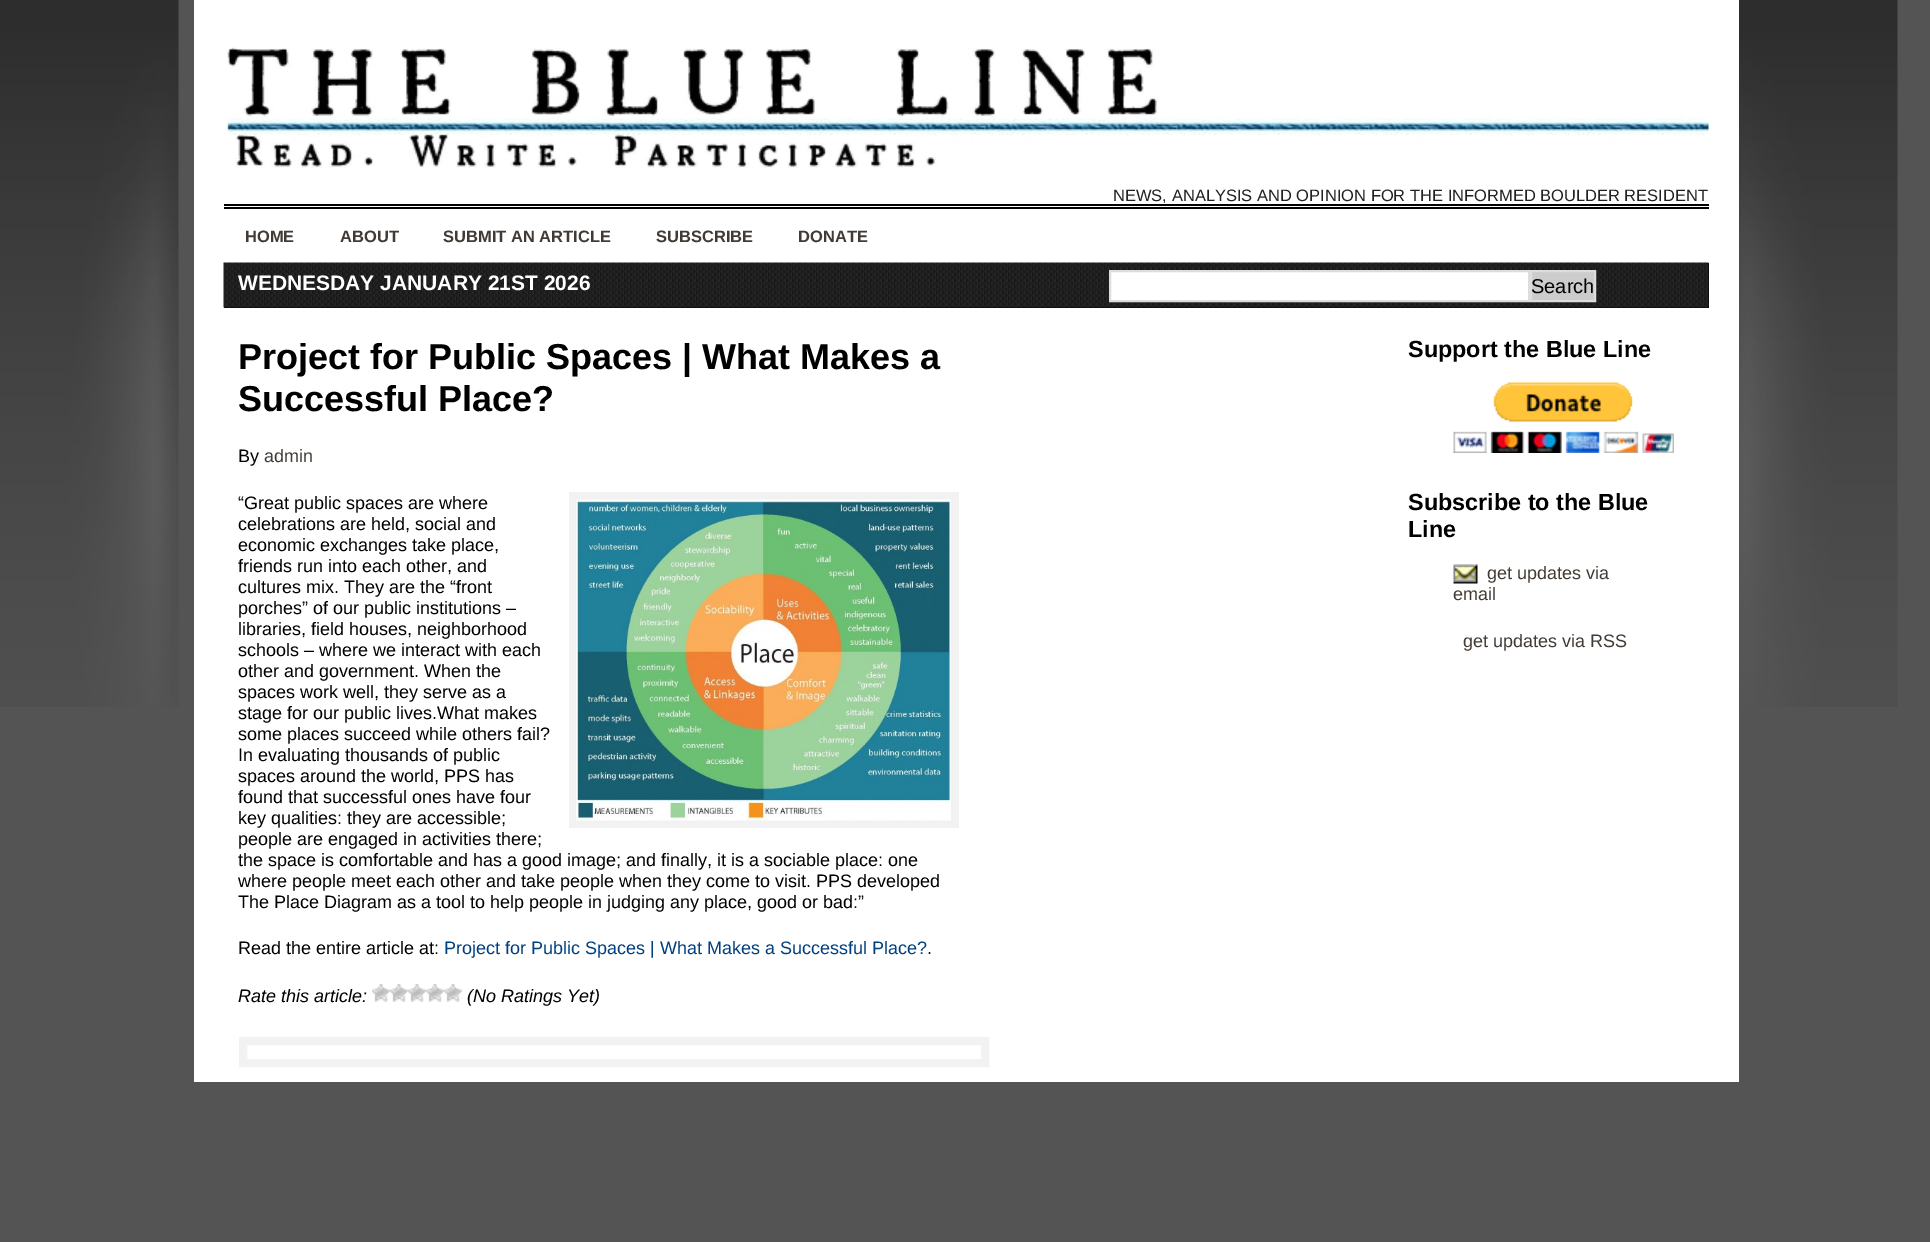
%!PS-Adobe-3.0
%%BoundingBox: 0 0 1930 1242
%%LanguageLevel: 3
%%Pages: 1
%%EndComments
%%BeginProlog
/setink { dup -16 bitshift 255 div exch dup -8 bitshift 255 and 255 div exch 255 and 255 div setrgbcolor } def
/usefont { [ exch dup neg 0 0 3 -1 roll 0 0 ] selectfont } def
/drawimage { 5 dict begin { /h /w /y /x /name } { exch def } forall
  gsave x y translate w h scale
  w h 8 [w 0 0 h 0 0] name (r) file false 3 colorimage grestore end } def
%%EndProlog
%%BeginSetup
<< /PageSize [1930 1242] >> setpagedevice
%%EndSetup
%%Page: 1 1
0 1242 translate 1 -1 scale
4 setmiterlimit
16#545454 setink
0 0 1930 1242 rectfill
(img1.raw) 0 0 1898 707 drawimage
16#FFFFFF setink
194 0 1545 1082 rectfill
(img2.raw) 225 47 1485 121 drawimage
/LiberationSans-Regular 16.5 usefont
16#212121 setink
1113 201 moveto (NEWS, ANALYSIS AND OPINION FOR THE INFORMED BOULDER RESIDENT) show
16#000000 setink
224 204 1485 2 rectfill
224 207 1485 2 rectfill
/LiberationSans-Bold 16.5 usefont
16#423B35 setink
[
    [(HOME) 245 242]
    [(ABOUT) 340 242]
    [(SUBMIT AN ARTICLE) 443 242]
    [(SUBSCRIBE) 656 242]
    [(DONATE) 798 242]
] { aload pop moveto show } forall
16#000000 setink
224 263 1485 45 rectfill
(img3.raw) 223 262 1486 46 drawimage
/LiberationSans-Bold 21 usefont
16#FFFFFF setink
238 290 moveto (WEDNESDAY JANUARY 21ST 2026) show
1110 271 moveto 1529 271 lineto 1529 301 lineto 1110 301 lineto closepath gsave fill grestore
16#DDDDDD setink
2 setlinewidth
stroke
16#CCCCCC setink
1531 271 moveto 1595 271 lineto 1595 301 lineto 1531 301 lineto closepath gsave fill grestore
16#DDDDDD setink
stroke
/LiberationSans-Regular 20 usefont
16#000000 setink
1531 293 moveto (Search) show
/LiberationSans-Bold 36 usefont
238 369 moveto (Project for Public Spaces | What Makes a) show
238 411 moveto (Successful Place?) show
/LiberationSans-Regular 18 usefont
238 462 moveto (By) show
16#423B35 setink
264 462 moveto (admin) show
16#F2F2F2 setink
569 492 390 336 rectfill
(img4.raw) 576 499 375 322 drawimage
16#000000 setink
[
    [(“Great public spaces are where) 238 509]
    [(celebrations are held, social and) 238 530]
    [(economic exchanges take place,) 238 551]
    [(friends run into each other, and) 238 572]
    [(cultures mix. They are the “front) 238 593]
    [(porches” of our public institutions –) 238 614]
    [(libraries, field houses, neighborhood) 238 635]
    [(schools – where we interact with each) 238 656]
    [(other and government. When the) 238 677]
    [(spaces work well, they serve as a) 238 698]
    [(stage for our public lives.What makes) 238 719]
    [(some places succeed while others fail?) 238 740]
    [(In evaluating thousands of public) 238 761]
    [(spaces around the world, PPS has) 238 782]
    [(found that successful ones have four) 238 803]
    [(key qualities: they are accessible;) 238 824]
    [(people are engaged in activities there;) 238 845]
    [(the space is comfortable and has a good image; and finally, it is a sociable place: one) 238 866]
    [(where people meet each other and take people when they come to visit. PPS developed) 238 887]
    [(The Place Diagram as a tool to help people in judging any place, good or bad:”) 238 908]
    [(Read the entire article at:) 238 954]
] { aload pop moveto show } forall
16#004080 setink
444 954 moveto (Project for Public Spaces | What Makes a Successful Place?) show
16#000000 setink
927 954 moveto (.) show
/LiberationSans-Italic 18 usefont
238 1002 moveto (Rate this article:) show
(img5.raw) 372 984 18 18 drawimage
(img5.raw) 390 984 18 18 drawimage
(img5.raw) 408 984 18 18 drawimage
(img5.raw) 426 984 18 18 drawimage
(img5.raw) 444 984 18 18 drawimage
467 1002 moveto (\(No Ratings Yet\)) show
16#F2F2F2 setink
8 setlinewidth
243 1041 742 22 rectstroke
/LiberationSans-Bold 23.4 usefont
16#000000 setink
1408 357 moveto (Support the Blue Line) show
(img6.raw) 1453 382 221 71 drawimage
1408 510 moveto (Subscribe to the Blue) show
1408 537 moveto (Line) show
(img7.raw) 1453 564 25 20 drawimage
/LiberationSans-Regular 18 usefont
16#423B35 setink
[
    [(get updates via) 1487 579]
    [(email) 1453 600]
    [(get updates via RSS) 1463 647]
] { aload pop moveto show } forall
showpage
%%EOF
